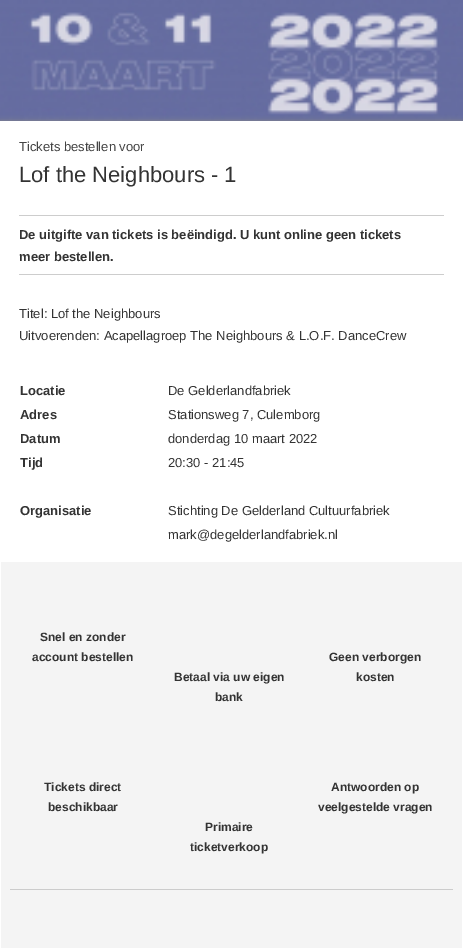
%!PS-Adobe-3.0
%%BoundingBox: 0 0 463 948
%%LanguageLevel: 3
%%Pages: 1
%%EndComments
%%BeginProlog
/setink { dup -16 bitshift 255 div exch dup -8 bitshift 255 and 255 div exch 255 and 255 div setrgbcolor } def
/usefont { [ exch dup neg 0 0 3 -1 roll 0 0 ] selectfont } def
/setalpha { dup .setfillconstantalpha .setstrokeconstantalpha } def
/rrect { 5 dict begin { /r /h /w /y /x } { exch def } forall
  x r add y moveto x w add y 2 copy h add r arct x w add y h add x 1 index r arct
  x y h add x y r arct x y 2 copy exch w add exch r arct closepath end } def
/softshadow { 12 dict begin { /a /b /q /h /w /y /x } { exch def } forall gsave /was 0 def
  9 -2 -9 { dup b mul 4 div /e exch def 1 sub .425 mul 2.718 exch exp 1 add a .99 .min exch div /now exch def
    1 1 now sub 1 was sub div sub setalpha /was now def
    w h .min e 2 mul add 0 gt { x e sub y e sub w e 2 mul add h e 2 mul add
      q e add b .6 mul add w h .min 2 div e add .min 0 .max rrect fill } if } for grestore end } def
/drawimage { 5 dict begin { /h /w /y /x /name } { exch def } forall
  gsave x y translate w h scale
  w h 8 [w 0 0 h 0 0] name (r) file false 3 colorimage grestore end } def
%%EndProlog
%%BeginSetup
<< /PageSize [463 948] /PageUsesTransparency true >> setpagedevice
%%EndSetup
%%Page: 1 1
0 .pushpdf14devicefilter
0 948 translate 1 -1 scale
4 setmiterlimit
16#FFFFFF setink
0 0 463 948 rectfill
(img1.raw) 0 0 463 121 drawimage
16#888888 setink
0 121 463 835 0 2.5 1 softshadow
16#FFFFFF setink
0 121 463 827 rectfill
/LiberationSans-Regular 13 usefont
16#444444 setink
19 151 moveto (Tickets bestellen voor) show
/LiberationSans-Regular 22 usefont
16#333333 setink
19 182 moveto (Lof the Neighbours - 1) show
16#CDCDCD setink
19 215 425 1 rectfill
19 274 425 1 rectfill
/LiberationSans-Bold 13 usefont
16#333333 setink
19 239 moveto (De uitgifte van tickets is beëindigd. U kunt online geen tickets) show
19 261 moveto (meer bestellen.) show
/LiberationSans-Regular 13 usefont
19 318 moveto (Titel: Lof the Neighbours) show
19 340 moveto (Uitvoerenden: Acapellagroep The Neighbours & L.O.F. DanceCrew) show
/LiberationSans-Bold 13 usefont
20 395 moveto (Locatie) show
/LiberationSans-Regular 13 usefont
168 395 moveto (De Gelderlandfabriek) show
/LiberationSans-Bold 13 usefont
20 419 moveto (Adres) show
/LiberationSans-Regular 13 usefont
168 419 moveto (Stationsweg 7, Culemborg) show
/LiberationSans-Bold 13 usefont
20 443 moveto (Datum) show
/LiberationSans-Regular 13 usefont
168 443 moveto (donderdag 10 maart 2022) show
/LiberationSans-Bold 13 usefont
20 467 moveto (Tijd) show
/LiberationSans-Regular 13 usefont
168 467 moveto (20:30 - 21:45) show
/LiberationSans-Bold 13 usefont
20 515 moveto (Organisatie) show
/LiberationSans-Regular 13 usefont
168 515 moveto (Stichting De Gelderland Cultuurfabriek) show
168 539 moveto (mark@degelderlandfabriek.nl) show
16#F4F4F4 setink
1 562 461 386 rectfill
/LiberationSans-Bold 12 usefont
16#333333 setink
[
    [(Snel en zonder) 40 641]
    [(account bestellen) 32 661]
    [(Geen verborgen) 329 661]
    [(kosten) 356 681]
    [(Betaal via uw eigen) 174 681]
    [(bank) 215 701]
    [(Tickets direct) 44 791]
    [(beschikbaar) 48 811]
    [(Antwoorden op) 331 791]
    [(veelgestelde vragen) 318 811]
    [(Primaire) 205 831]
    [(ticketverkoop) 190 851]
] { aload pop moveto show } forall
16#CCCCCC setink
10 889 443 1 rectfill
.poppdf14devicefilter showpage
%%EOF
